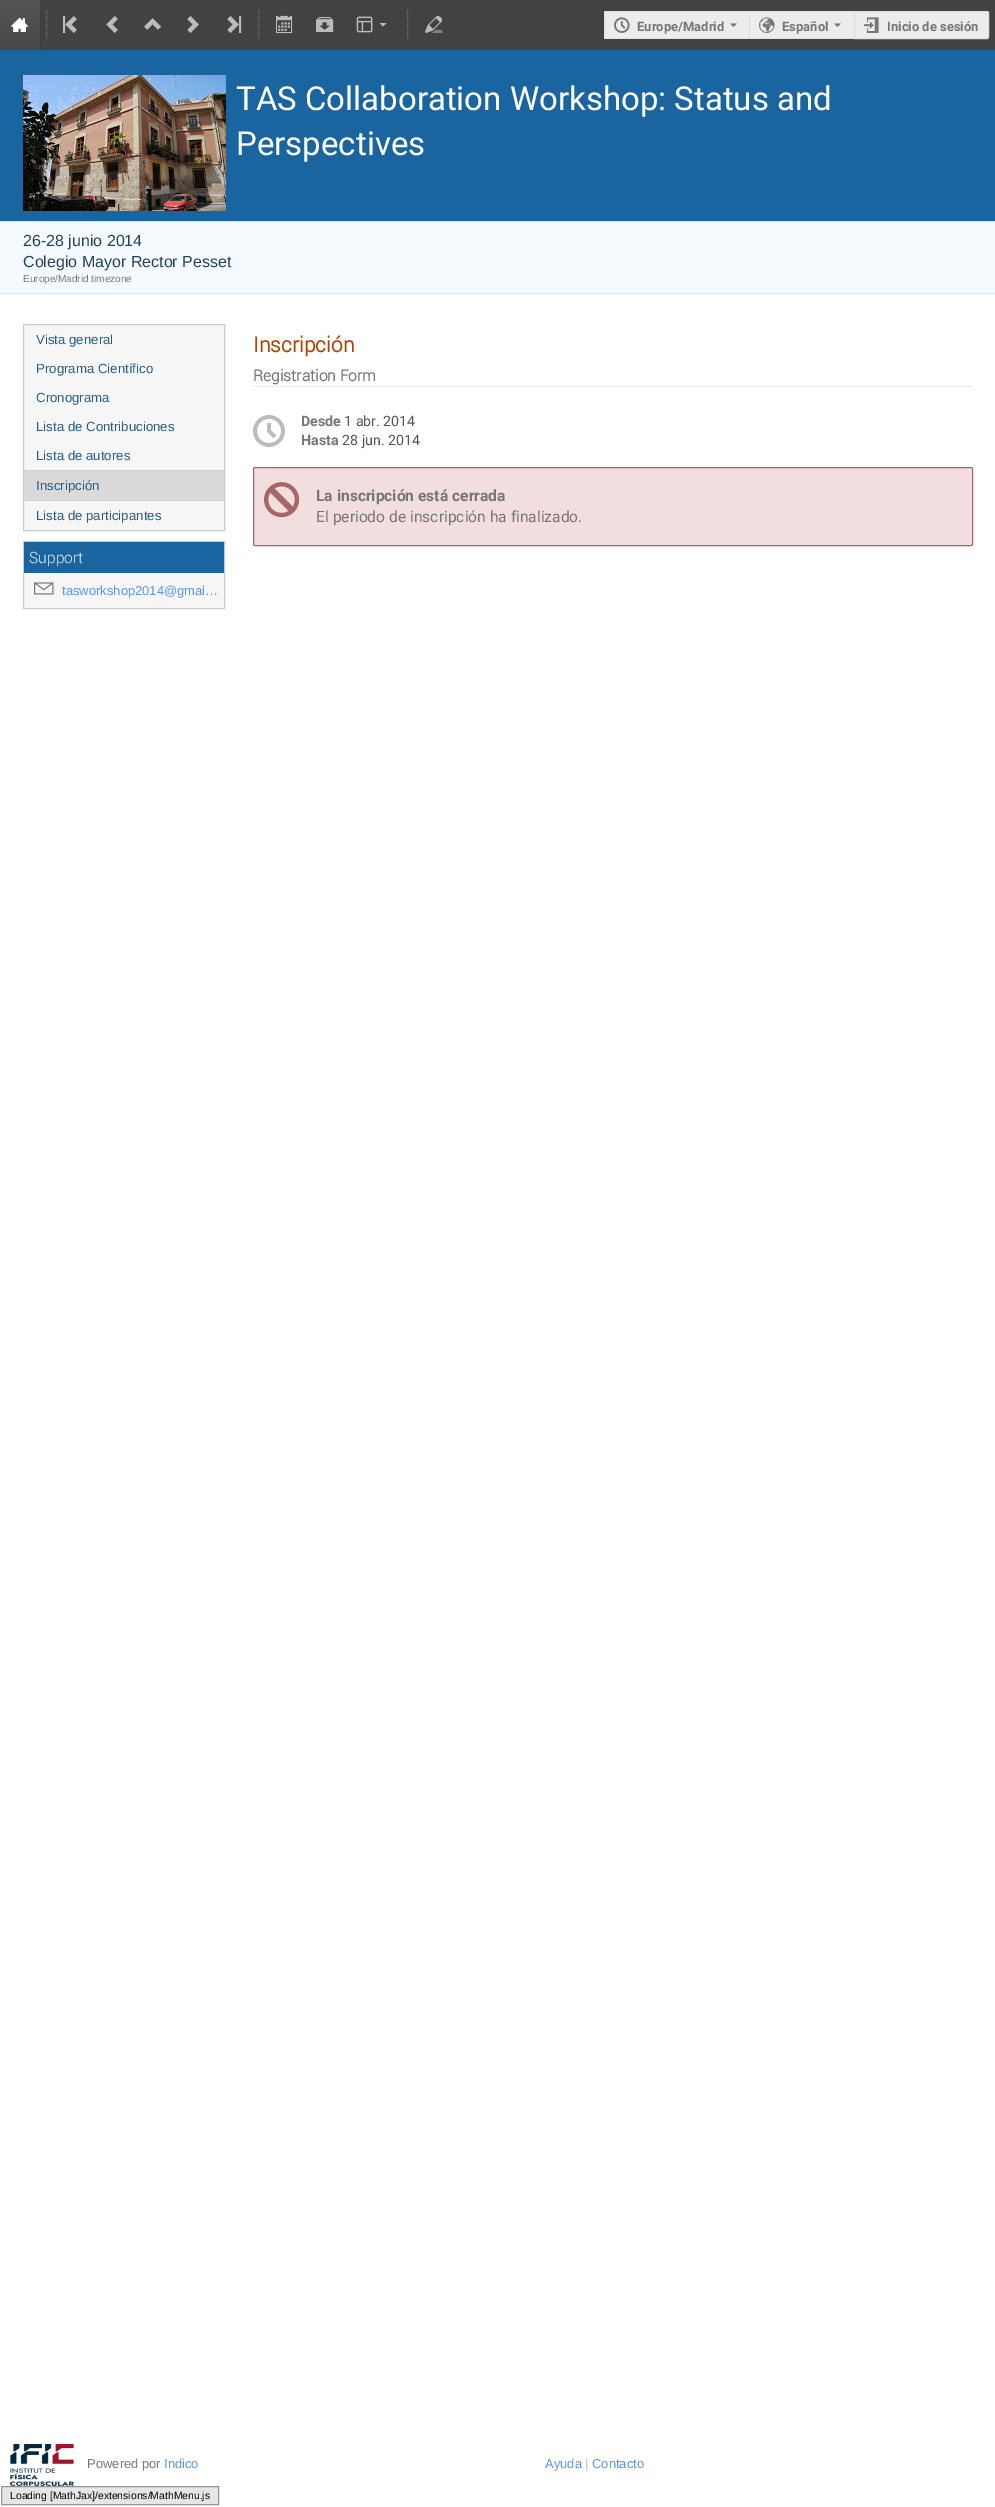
%!PS-Adobe-3.0
%%BoundingBox: 0 0 995 2507
%%LanguageLevel: 3
%%Pages: 1
%%EndComments
%%BeginProlog
/setink { dup -16 bitshift 255 div exch dup -8 bitshift 255 and 255 div exch 255 and 255 div setrgbcolor } def
/usefont { [ exch dup neg 0 0 3 -1 roll 0 0 ] selectfont } def
/setalpha { dup .setfillconstantalpha .setstrokeconstantalpha } def
/rrect { 5 dict begin { /r /h /w /y /x } { exch def } forall
  x r add y moveto x w add y 2 copy h add r arct x w add y h add x 1 index r arct
  x y h add x y r arct x y 2 copy exch w add exch r arct closepath end } def
/softshadow { 12 dict begin { /a /b /q /h /w /y /x } { exch def } forall gsave /was 0 def
  9 -2 -9 { dup b mul 4 div /e exch def 1 sub .425 mul 2.718 exch exp 1 add a .99 .min exch div /now exch def
    1 1 now sub 1 was sub div sub setalpha /was now def
    w h .min e 2 mul add 0 gt { x e sub y e sub w e 2 mul add h e 2 mul add
      q e add b .6 mul add w h .min 2 div e add .min 0 .max rrect fill } if } for grestore end } def
/drawimage { 5 dict begin { /h /w /y /x /name } { exch def } forall
  gsave x y translate w h scale
  w h 8 [w 0 0 h 0 0] name (r) file false 3 colorimage grestore end } def
%%EndProlog
%%BeginSetup
<< /PageSize [995 2507] /PageUsesTransparency true >> setpagedevice
%%EndSetup
%%Page: 1 1
0 .pushpdf14devicefilter
0 2507 translate 1 -1 scale
4 setmiterlimit
16#FFFFFF setink
0 0 995 2507 rectfill
16#424242 setink
40 0 955 50 rectfill
16#1A64A0 setink
0 50 995 171 rectfill
16#141414 setink
1 1 40 50 0 2 0.1 softshadow
gsave 0 0 moveto 40 0 lineto 40 50 lineto 0 50 lineto closepath clip newpath
<< /ShadingType 2 /ColorSpace /DeviceRGB /Coords [20 0 20 50] /Extend [true true] /Function << /FunctionType 2 /Domain [0 1] /C0 [0.333 0.333 0.333] /C1 [0.282 0.282 0.282] /N 1 >> >> shfill grestore
(img1.raw) 11 17 18 15 drawimage
16#777777 setink
[1 1] 0 setdash
46.5 10 moveto 46.5 40 lineto stroke
(img2.raw) 63 15 14 19 drawimage
(img3.raw) 106 16 12 17 drawimage
(img4.raw) 144 18 17 12 drawimage
(img5.raw) 187 16 12 17 drawimage
(img6.raw) 227 15 15 19 drawimage
258.5 10 moveto 258.5 40 lineto stroke
(img7.raw) 276 15 17 19 drawimage
(img8.raw) 316 17 18 15 drawimage
(img9.raw) 356 16 17 17 drawimage
16#BBBBBB setink
379.5 23 moveto 383 26.5 lineto 386.5 23 lineto closepath fill
16#777777 setink
407.5 10 moveto 407.5 40 lineto stroke
(img10.raw) 425 16 18 17 drawimage
[
    [605 12 144 26 16#ECECEC]
    [604 11 250 1 16#DFDFDF]
    [604 38 250 1 16#DFDFDF]
    [604 11 1 28 16#DFDFDF]
] { aload pop setink rectfill } forall
(img11.raw) 614 17 16 16 drawimage
/Roboto-Bold 13 usefont
16#777777 setink
637 31 moveto (Europe/Madrid) show
730 23.5 moveto 733.5 27 lineto 737 23.5 lineto closepath fill
16#ECECEC setink
750 12 104 26 rectfill
16#DFDFDF setink
749 11 1 28 rectfill
(img12.raw) 759 17 16 16 drawimage
16#777777 setink
782 31 moveto (Español) show
834 23.5 moveto 837.5 27 lineto 841 23.5 lineto closepath fill
16#ECECEC setink
854.5 11.5 moveto 987 11.5 lineto 988 11.5 988.5 12 988.5 13 curveto 988.5 37 lineto 988.5 38 988 38.5 987 38.5 curveto 854.5 38.5 lineto closepath gsave fill grestore
16#DFDFDF setink
[] 0 setdash
stroke
(img13.raw) 864 17 15 16 drawimage
16#777777 setink
887 31 moveto (Inicio de sesión) show
(img14.raw) 23 75 203 136 drawimage
/Roboto-Regular 33 usefont
16#FFFFFF setink
236 110 moveto (TAS Collaboration Workshop: Status and) show
236 155 moveto (Perspectives) show
[
    [0 222 995 71 16#F5FAFF]
    [0 221 995 1 16#D5E4F1]
    [0 293 995 1 16#D5E4F1]
] { aload pop setink rectfill } forall
/LiberationSans-Regular 16 usefont
16#24425A setink
23 246 moveto (26-28 junio 2014) show
23 267 moveto (Colegio Mayor Rector Pesset) show
/LiberationSans-Regular 10 usefont
16#777777 setink
23 282 moveto (Europe/Madrid timezone) show
16#F6F6F6 setink
23.5 324.5 moveto 224.5 324.5 lineto 224.5 530.5 lineto 23.5 530.5 lineto closepath gsave fill grestore
16#CCCCCC setink
stroke
/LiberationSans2-Regular 13.25 usefont
16#275C86 setink
[
    [(Vista general) 36 344]
    [(Programa Científico) 36 373]
    [(Cronograma) 36 402]
    [(Lista de Contribuciones) 36 431]
    [(Lista de autores) 36 460]
] { aload pop moveto show } forall
[
    [24 471 200 29 16#DADADA]
    [24 470 200 1 16#D0D0D0]
    [24 500 200 1 16#D0D0D0]
] { aload pop setink rectfill } forall
16#275C86 setink
36 490 moveto (Inscripción) show
36 520 moveto (Lista de participantes) show
16#F6F6F6 setink
24 573 200 35 rectfill
16#CCCCCC setink
23.5 541.5 201 67 rectstroke
16#1A64A0 setink
24 542 200 31 rectfill
/Roboto-Light 15.6 usefont
16#F3F3F3 setink
29 563 moveto (Support) show
(img15.raw) 34 582 20 13 drawimage
/LiberationSans-Regular 13 usefont
16#5D95EA setink
62 595 moveto (tasworkshop2014@gmai…) show
16#EBEBEB setink
253 386 720 1 rectfill
/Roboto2-Bold 21 usefont
16#B14300 setink
253 352 moveto (Inscripción) show
/Roboto2-Bold 15.6 usefont
16#777777 setink
253 381 moveto (Registration Form) show
(img16.raw) 253 415 32 32 drawimage
/Roboto-Bold 14.25 usefont
301 426 moveto (Desde) show
/Roboto-Regular 14.25 usefont
16#555555 setink
344 426 moveto (1 abr. 2014) show
/Roboto-Bold 14.25 usefont
16#777777 setink
301 445 moveto (Hasta) show
/Roboto-Regular 14.25 usefont
16#555555 setink
342 445 moveto (28 jun. 2014) show
16#F2DEDE setink
253.5 467.5 719 78 1.5 rrect gsave fill grestore
16#A76766 setink
stroke
(img17.raw) 264 482 36 36 drawimage
/Roboto-Bold 15.6 usefont
16#777777 setink
316 501 moveto (La inscripción está cerrada) show
/Roboto-Regular 15.6 usefont
316 522 moveto (El periodo de inscripción ha finalizado.) show
(img18.raw) 10 2444 64 42 drawimage
/LiberationSans-Regular 13 usefont
87 2468 moveto (Powered por) show
16#5D95EA setink
164 2468 moveto (Indico) show
545 2468 moveto (Ayuda) show
16#BBBBBB setink
585 2468 moveto (|) show
16#5D95EA setink
592 2468 moveto (Contacto) show
16#E6E6E6 setink
1.5 2486.5 moveto 218.5 2486.5 lineto 218.5 2504.5 lineto 1.5 2504.5 lineto closepath gsave fill grestore
16#959595 setink
stroke
/LiberationSans-Regular 10.4 usefont
16#000000 setink
10 2499 moveto (Loading [MathJax]/extensions/MathMenu.js) show
.poppdf14devicefilter showpage
%%EOF
